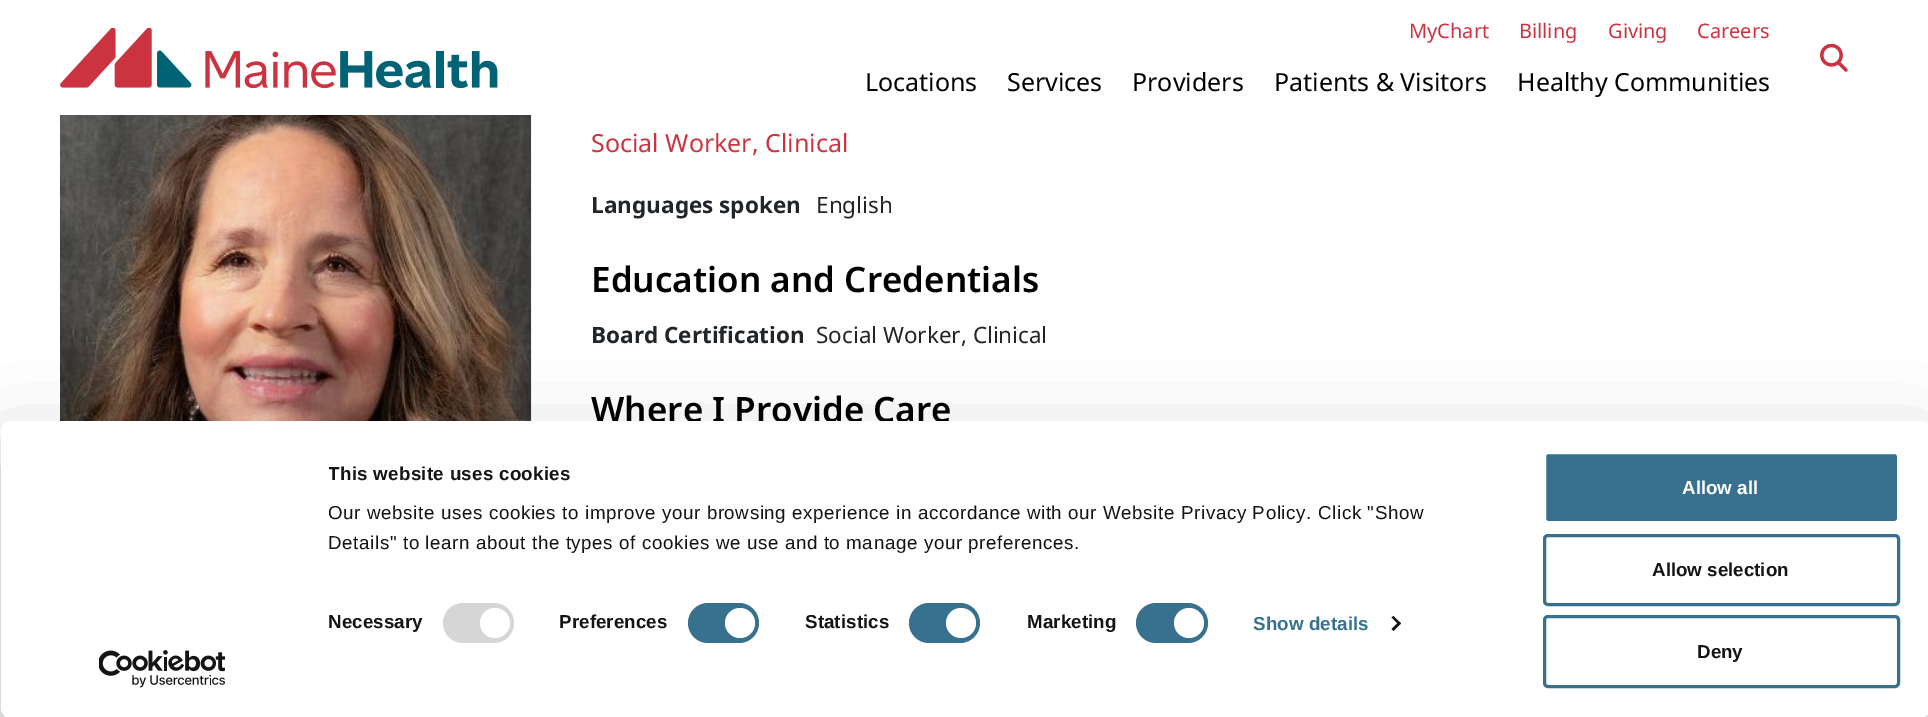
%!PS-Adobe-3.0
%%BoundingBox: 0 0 1928 717
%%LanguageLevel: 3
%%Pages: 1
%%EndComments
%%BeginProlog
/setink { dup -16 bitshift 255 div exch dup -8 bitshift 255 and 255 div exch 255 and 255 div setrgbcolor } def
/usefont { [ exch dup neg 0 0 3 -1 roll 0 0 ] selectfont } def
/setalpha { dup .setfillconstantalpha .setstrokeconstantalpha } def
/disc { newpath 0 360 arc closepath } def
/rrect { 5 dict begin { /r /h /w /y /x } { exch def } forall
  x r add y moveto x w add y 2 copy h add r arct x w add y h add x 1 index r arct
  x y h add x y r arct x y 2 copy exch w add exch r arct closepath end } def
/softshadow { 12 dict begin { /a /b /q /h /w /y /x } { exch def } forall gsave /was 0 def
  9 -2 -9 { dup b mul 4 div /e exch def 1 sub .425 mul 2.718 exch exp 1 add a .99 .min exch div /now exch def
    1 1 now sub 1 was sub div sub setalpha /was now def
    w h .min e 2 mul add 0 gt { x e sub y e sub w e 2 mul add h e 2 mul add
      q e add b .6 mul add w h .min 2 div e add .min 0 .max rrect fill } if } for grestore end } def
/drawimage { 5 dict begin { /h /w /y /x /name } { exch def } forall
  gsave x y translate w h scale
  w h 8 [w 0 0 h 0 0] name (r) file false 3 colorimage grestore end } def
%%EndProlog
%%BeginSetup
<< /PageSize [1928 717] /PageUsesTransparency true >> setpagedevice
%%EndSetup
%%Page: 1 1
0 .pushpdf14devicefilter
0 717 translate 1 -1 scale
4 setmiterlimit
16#FFFFFF setink
0 0 1928 717 rectfill
(img1.raw) 60 28 438 60 drawimage
/NotoSans-Regular 20 usefont
16#CB3340 setink
[
    [(MyChart) 1409 38]
    [(Billing) 1519 38]
    [(Giving) 1608 38]
    [(Careers) 1697 38]
] { aload pop moveto show } forall
/NotoSans-Regular 25 usefont
16#000000 setink
[
    [(Locations) 865 91]
    [(Services) 1007 91]
    [(Providers) 1132 91]
    [(Patients & Visitors) 1274 91]
    [(Healthy Communities) 1517 91]
] { aload pop moveto show } forall
(img2.raw) 1820 44 28 28 drawimage
(img3.raw) 60 115 472 306 drawimage
16#CB3340 setink
591 152 moveto (Social Worker, Clinical) show
/NotoSans-Bold 22.5 usefont
16#212529 setink
591 213 moveto (Languages spoken) show
/NotoSans-Regular 22.5 usefont
816 213 moveto (English) show
/NotoSans-SemiBold 35 usefont
16#000000 setink
591 292 moveto (Education and Credentials) show
/NotoSans-Bold 22.5 usefont
16#212529 setink
591 343 moveto (Board Certification) show
/NotoSans-Regular 22.5 usefont
816 343 moveto (Social Worker, Clinical) show
/NotoSans-SemiBold 35 usefont
16#000000 setink
591 422 moveto (Where I Provide Care) show
1 459 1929 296 10 44 0.3 softshadow
16#FFFFFF setink
1 421 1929 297 10 rrect fill
gsave
329 459 1177 99 rectclip
/LiberationSans-Bold 18.75 usefont
16#141414 setink
328 480 moveto 0.3 0 (This website uses cookies) ashow
/LiberationSans-Regular 18.75 usefont
328 519 moveto 0.62 0 (Our website uses cookies to improve your browsing experience in accordance with our Website Privacy Policy. Click "Show) ashow
grestore
/LiberationSans-Regular 18.75 usefont
16#141414 setink
328 549 moveto 0.62 0 (Details" to learn about the types of cookies we use and to manage your preferences.) ashow
/LiberationSans-Bold 18.75 usefont
328 628 moveto 0.1 0 (Necessary) ashow
16#D6D6D6 setink
443 603 71 40 20 rrect fill
16#FFFFFF setink
495 623 15 disc fill
16#141414 setink
559 628 moveto 0.1 0 (Preferences) ashow
16#37718E setink
688 603 71 40 20 rrect fill
16#FFFFFF setink
740 623 15 disc fill
16#141414 setink
805 628 moveto 0.1 0 (Statistics) ashow
16#37718E setink
909 603 71 40 20 rrect fill
16#FFFFFF setink
961 623 15 disc fill
16#141414 setink
1027 628 moveto 0.1 0 (Marketing) ashow
16#37718E setink
1136 603 72 40 20 rrect fill
16#FFFFFF setink
1189 623 15 disc fill
16#37718E setink
1253 630 moveto 0.1 0 (Show details) ashow
16#141414 setink
1393.5 616 moveto 1401 623.5 lineto 1399 625 lineto 1391.5 617.5 lineto closepath fill
1399 621.5 moveto 1401 623.5 lineto 1393.5 631 lineto 1391.5 629 lineto closepath fill
16#37718E setink
1544.5 452.5 354 70 3.5 rrect gsave fill grestore
16#FFFFFF setink
3 setlinewidth
stroke
1682 494 moveto (Allow all) show
16#37718E setink
1544.5 535.5 354 69 3.5 rrect stroke
16#141414 setink
1652 576 moveto (Allow selection) show
16#37718E setink
1544.5 616.5 354 70 3.5 rrect stroke
16#141414 setink
1697 658 moveto (Deny) show
(img4.raw) 99 650 126 38 drawimage
.poppdf14devicefilter showpage
%%EOF
